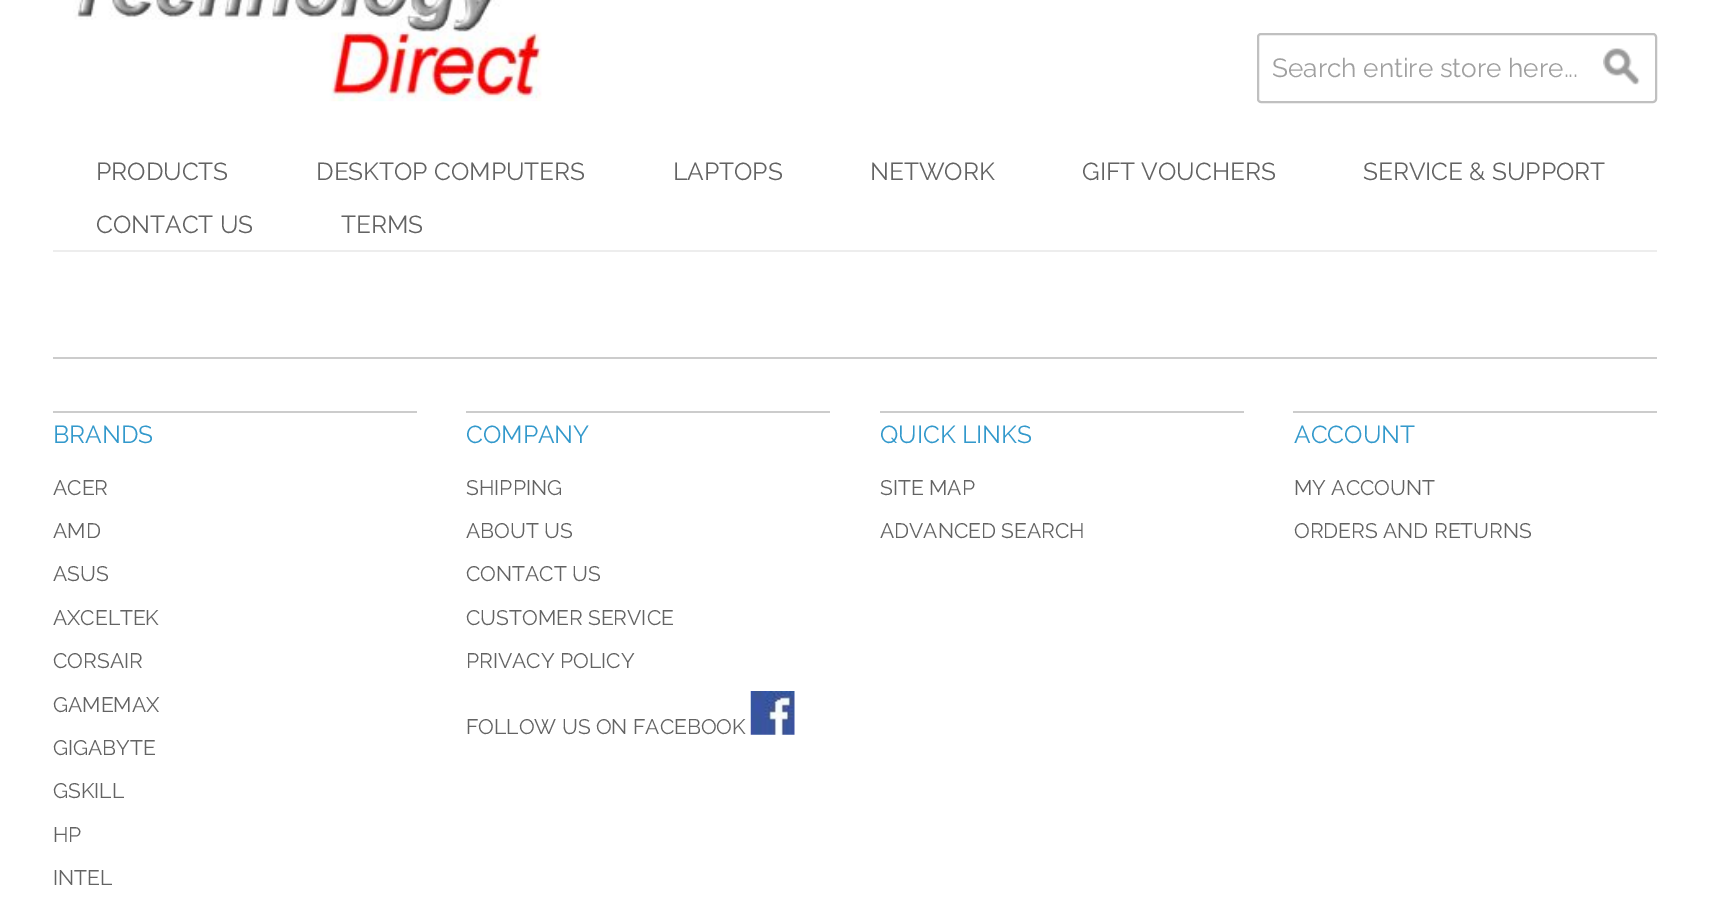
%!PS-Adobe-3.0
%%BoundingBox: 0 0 1709 897
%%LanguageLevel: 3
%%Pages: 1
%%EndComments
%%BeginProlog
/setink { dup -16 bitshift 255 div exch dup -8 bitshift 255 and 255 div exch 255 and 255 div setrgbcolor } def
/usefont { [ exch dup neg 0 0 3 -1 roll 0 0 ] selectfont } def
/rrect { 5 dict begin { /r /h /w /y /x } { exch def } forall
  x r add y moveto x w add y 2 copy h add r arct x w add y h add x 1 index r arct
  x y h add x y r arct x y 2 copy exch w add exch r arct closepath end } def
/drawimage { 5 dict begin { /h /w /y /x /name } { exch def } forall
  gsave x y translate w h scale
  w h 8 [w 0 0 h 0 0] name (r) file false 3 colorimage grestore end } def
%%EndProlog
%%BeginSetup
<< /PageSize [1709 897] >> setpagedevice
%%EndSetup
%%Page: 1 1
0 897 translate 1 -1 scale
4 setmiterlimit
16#FFFFFF setink
0 0 1709 897 rectfill
(img1.raw) 73 0 469 102 drawimage
16#C0C0C0 setink
2 setlinewidth
1258 34 398 68 3 rrect stroke
/Raleway-Regular 26.25 usefont
16#A0A0A0 setink
1272 77 moveto (Search entire store here...) show
(img2.raw) 1603 48 37 37 drawimage
16#EDEDED setink
53 250 1604 2 rectfill
/Raleway-Regular 24.5 usefont
16#636363 setink
[
    [(PRODUCTS) 96 180]
    [(DESKTOP COMPUTERS) 316 180]
    [(LAPTOPS) 673 180]
    [(NETWORK) 870 180]
    [(GIFT VOUCHERS) 1082 180]
    [(SERVICE & SUPPORT) 1363 180]
    [(CONTACT US) 96 233]
    [(TERMS) 341 233]
] { aload pop moveto show } forall
16#CCCCCC setink
53 357 1604 2 rectfill
53 411 364 2 rectfill
16#3399CC setink
53 443 moveto (BRANDS) show
/Raleway-Regular 21 usefont
16#636363 setink
[
    [(ACER) 53 495]
    [(AMD) 53 538]
    [(ASUS) 53 581]
    [(AXCELTEK) 53 625]
    [(CORSAIR) 53 668]
    [(GAMEMAX) 53 712]
    [(GIGABYTE) 53 755]
    [(GSKILL) 53 798]
    [(HP) 53 842]
    [(INTEL) 53 885]
] { aload pop moveto show } forall
16#CCCCCC setink
466 411 364 2 rectfill
/Raleway-Regular 24.5 usefont
16#3399CC setink
466 443 moveto (COMPANY) show
/Raleway-Regular 21 usefont
16#636363 setink
[
    [(SHIPPING) 466 495]
    [(ABOUT US) 466 538]
    [(CONTACT US) 466 581]
    [(CUSTOMER SERVICE) 466 625]
    [(PRIVACY POLICY) 466 668]
    [(FOLLOW US ON FACEBOOK) 466 734]
] { aload pop moveto show } forall
(img3.raw) 750 691 45 44 drawimage
16#CCCCCC setink
880 411 364 2 rectfill
/Raleway-Regular 24.5 usefont
16#3399CC setink
880 443 moveto (QUICK LINKS) show
/Raleway-Regular 21 usefont
16#636363 setink
880 495 moveto (SITE MAP) show
880 538 moveto (ADVANCED SEARCH) show
16#CCCCCC setink
1293 411 364 2 rectfill
/Raleway-Regular 24.5 usefont
16#3399CC setink
1294 443 moveto (ACCOUNT) show
/Raleway-Regular 21 usefont
16#636363 setink
1294 495 moveto (MY ACCOUNT) show
1294 538 moveto (ORDERS AND RETURNS) show
showpage
%%EOF
